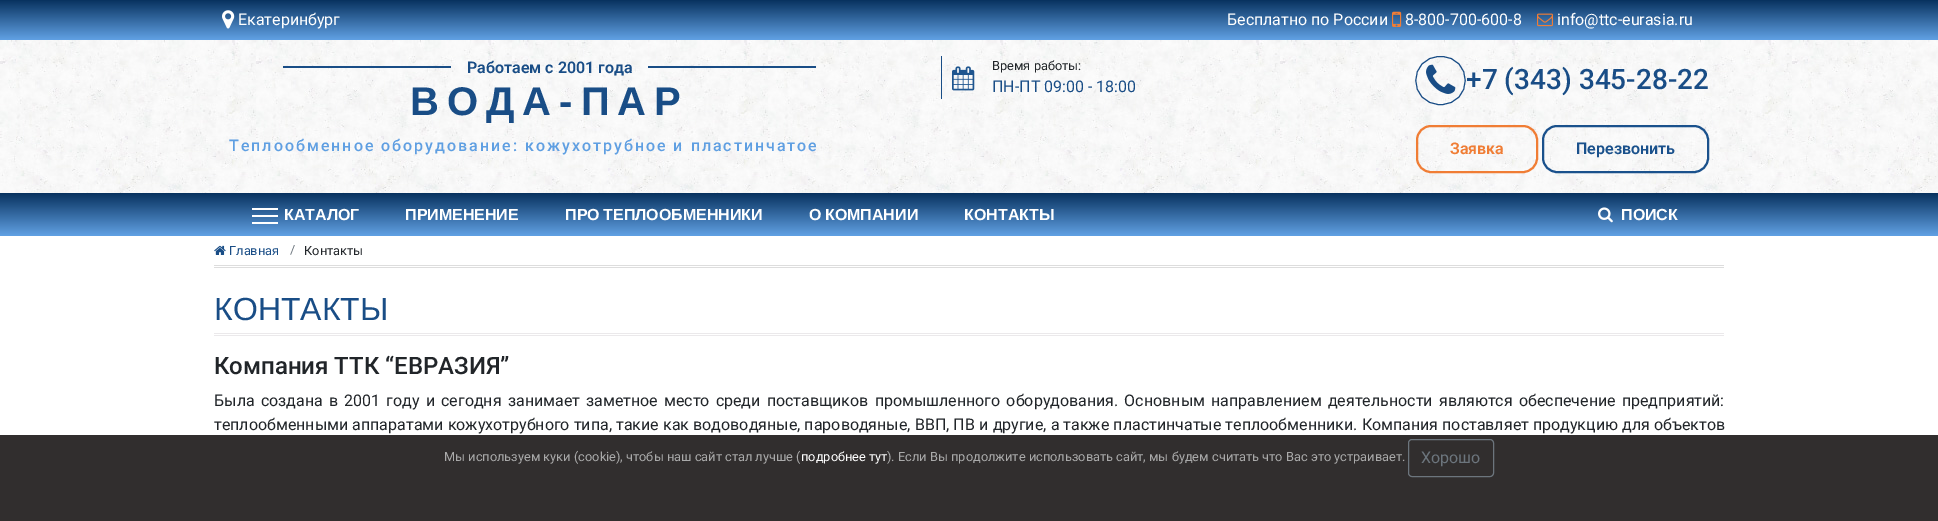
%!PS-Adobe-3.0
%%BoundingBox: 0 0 1938 521
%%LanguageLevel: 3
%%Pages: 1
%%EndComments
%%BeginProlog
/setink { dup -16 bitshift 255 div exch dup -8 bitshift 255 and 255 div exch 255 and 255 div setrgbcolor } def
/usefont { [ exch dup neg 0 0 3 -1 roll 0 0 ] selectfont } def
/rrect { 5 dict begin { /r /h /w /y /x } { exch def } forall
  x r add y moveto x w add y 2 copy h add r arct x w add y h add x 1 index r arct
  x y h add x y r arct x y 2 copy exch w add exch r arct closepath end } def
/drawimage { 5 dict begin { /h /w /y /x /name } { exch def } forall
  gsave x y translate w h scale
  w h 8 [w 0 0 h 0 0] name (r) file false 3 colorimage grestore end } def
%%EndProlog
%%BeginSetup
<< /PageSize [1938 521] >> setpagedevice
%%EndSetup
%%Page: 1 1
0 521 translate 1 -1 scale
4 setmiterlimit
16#FFFFFF setink
0 0 1938 521 rectfill
gsave 0 0 moveto 1938 0 lineto 1938 40 lineto 0 40 lineto closepath clip newpath
<< /ShadingType 2 /ColorSpace /DeviceRGB /Coords [969 40 969 0] /Extend [true true] /Function << /FunctionType 2 /Domain [0 1] /C0 [0.38 0.631 0.894] /C1 [0.031 0.196 0.373] /N 1 >> >> shfill grestore
(img1.raw) 222 10 13 19 drawimage
/Roboto-Regular 16 usefont
238 25 moveto (Екатеринбург) show
1227 25 moveto (Бесплатно по России) show
(img2.raw) 1392 11 10 16 drawimage
1405 25 moveto (8-800-700-600-8) show
(img3.raw) 1537 13 16 14 drawimage
1557 25 moveto (info@ttc-eurasia.ru) show
(img4.raw) 0 40 1938 153 drawimage
16#194D86 setink
283 66 168 2 rectfill
/Roboto-SemiBold 16 usefont
467 73 moveto (Работаем с 2001 года) show
648 66 168 2 rectfill
/LiberationSans-Bold 40 usefont
410 115 moveto 8 0 (ВОДА-ПАР) ashow
941 56 1 43 rectfill
(img5.raw) 952 66 23 25 drawimage
/Roboto-Regular 12.8 usefont
16#212529 setink
992 70 moveto (Время работы:) show
/Roboto-Regular 16 usefont
16#194D86 setink
992 92 moveto (ПН-ПТ 09:00 - 18:00) show
/Roboto-Medium 16 usefont
16#5F9FE2 setink
229 151 moveto 2 0 (Теплообменное оборудование: кожухотрубное и пластинчатое) ashow
16#194D86 setink
1440.5 56.5 moveto 1473.5 56.5 1473.5 104.5 1440.5 104.5 curveto 1407.5 104.5 1407.5 56.5 1440.5 56.5 curveto closepath stroke
(img6.raw) 1426 64 30 30 drawimage
/Roboto-Medium 28 usefont
1466 89 moveto (+7 \(343\) 345-28-22) show
16#F07D35 setink
2 setlinewidth
1417 126 120 46 14 rrect stroke
/Roboto-SemiBold 16 usefont
1450 154 moveto (Заявка) show
16#1A518C setink
1543 126 165 46 14 rrect stroke
1576 154 moveto (Перезвонить) show
gsave 0 193 moveto 1938 193 lineto 1938 236 lineto 0 236 lineto closepath clip newpath
<< /ShadingType 2 /ColorSpace /DeviceRGB /Coords [969 236 969 193] /Extend [true true] /Function << /FunctionType 2 /Domain [0 1] /C0 [0.38 0.631 0.894] /C1 [0.031 0.196 0.373] /N 1 >> >> shfill grestore
[
    [252 208 26 2 16#FFFFFF]
    [252 215 26 2 16#FFFFFF]
    [252 222 26 2 16#FFFFFF]
] { aload pop setink rectfill } forall
/LiberationSans-Bold 16 usefont
284 220 moveto (КАТАЛОГ) show
405 220 moveto (ПРИМЕНЕНИЕ) show
565 220 moveto -1 0 32 (ПРО ТЕПЛООБМЕННИКИ) widthshow
809 220 moveto -1 0 32 (О КОМПАНИИ) widthshow
964 220 moveto (КОНТАКТЫ) show
(img7.raw) 1598 207 15 16 drawimage
1621 220 moveto (ПОИСК) show
16#DDDDDD setink
214 265 1510 1 rectfill
214 267 1510 1 rectfill
(img8.raw) 214 245 12 10 drawimage
/Roboto-Regular 12.8 usefont
16#194D86 setink
229 255 moveto (Главная) show
16#6C757D setink
290 254 moveto (/) show
16#212529 setink
304 255 moveto (Контакты) show
16#EBE9EB setink
214 333 1510 1 rectfill
214 335 1510 1 rectfill
/LiberationSans-Regular 32 usefont
16#194D86 setink
214 320 moveto (КОНТАКТЫ) show
/Roboto-Medium 24 usefont
16#212529 setink
214 374 moveto (Компания ТТК “ЕВРАЗИЯ”) show
/Roboto-Regular 16 usefont
214 406 moveto 2.25 0 32 (Была создана в 2001 году и сегодня занимает заметное место среди поставщиков промышленного оборудования. Основным направлением деятельности являются обеспечение предприятий:) widthshow
214 430 moveto 0.25 0 32 (теплообменными аппаратами кожухотрубного типа, такие как водоводяные, пароводяные, ВВП, ПВ и другие, а также пластинчатые теплообменники. Компания поставляет продукцию для объектов) widthshow
16#312E2E setink
0 435 1938 86 rectfill
/Roboto-Regular 12.8 usefont
16#AAAAAA setink
444 461 moveto (Мы используем куки \(cookie\), чтобы наш сайт стал лучше \() show
16#FFFFFF setink
801 461 moveto (подробнее тут) show
16#AAAAAA setink
887 461 moveto (\). Если Вы продолжите использовать сайт, мы будем считать что Вас это устраивает.) show
16#6C757D setink
1 setlinewidth
1408.5 439.5 85 37 3.5 rrect stroke
/Roboto-Regular 16 usefont
1421 463 moveto (Хорошо) show
showpage
%%EOF
